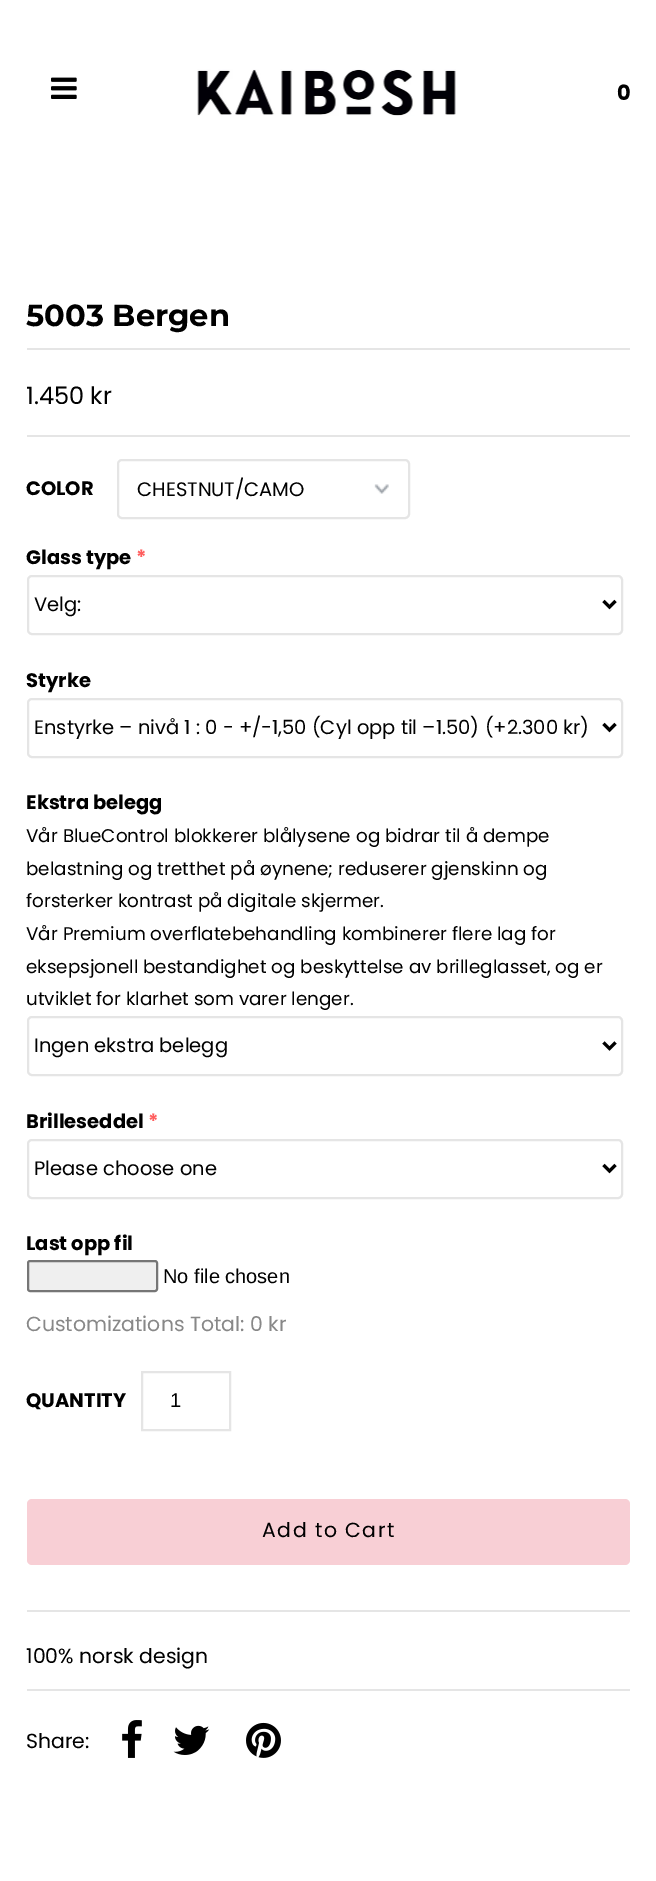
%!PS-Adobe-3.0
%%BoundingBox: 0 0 656 1881
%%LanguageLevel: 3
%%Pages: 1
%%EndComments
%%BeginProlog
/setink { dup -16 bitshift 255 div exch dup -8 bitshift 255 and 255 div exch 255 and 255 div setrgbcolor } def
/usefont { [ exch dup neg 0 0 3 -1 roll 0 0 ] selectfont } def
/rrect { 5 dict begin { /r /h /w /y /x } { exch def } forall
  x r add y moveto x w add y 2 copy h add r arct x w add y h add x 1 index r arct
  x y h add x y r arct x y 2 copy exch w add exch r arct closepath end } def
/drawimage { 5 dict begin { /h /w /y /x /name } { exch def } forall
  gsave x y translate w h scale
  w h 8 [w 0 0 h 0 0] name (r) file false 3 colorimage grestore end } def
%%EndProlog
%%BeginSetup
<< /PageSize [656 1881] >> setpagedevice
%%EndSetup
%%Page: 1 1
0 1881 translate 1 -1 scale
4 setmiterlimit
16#FFFFFF setink
0 0 656 1881 rectfill
(img1.raw) 51 77 26 22 drawimage
(img2.raw) 197 69 259 47 drawimage
/Poppins-Bold 21 usefont
16#000000 setink
617 100 moveto (0) show
/Montserrat-Thin 30.5 usefont
26 326 moveto (5003 Bergen) show
[
    [27 348 603 2 16#E5E5E5]
    [27 1610 603 2 16#E5E5E5]
    [27 435 603 2 16#E5E5E5]
] { aload pop setink rectfill } forall
/Poppins-Regular 24 usefont
16#000000 setink
26 404 moveto (1.450 kr) show
/Poppins-Bold 19.5 usefont
26 495 moveto (COLOR) show
(img3.raw) 374 484 15 10 drawimage
16#E5E5E5 setink
2 setlinewidth
118 460 291 58 4 rrect stroke
/Poppins-Regular 19.5 usefont
16#000000 setink
137 496 moveto (CHESTNUT/CAMO) show
/Poppins-Bold 19.5 usefont
26 564 moveto (Glass type) show
16#FF5D5D setink
136 564 moveto (*) show
16#E5E5E5 setink
28 576 594 58 4 rrect stroke
16#000000 setink
3 setlinewidth
603.5 601 moveto 609.5 607 lineto 615.5 601 lineto stroke
/Poppins-Regular 19.5 usefont
34 611 moveto (Velg:) show
/Poppins-Bold 19.5 usefont
26 687 moveto (Styrke) show
16#E5E5E5 setink
2 setlinewidth
28 699 594 58 4 rrect stroke
16#000000 setink
3 setlinewidth
603.5 724 moveto 609.5 730 lineto 615.5 724 lineto stroke
/Poppins-Regular 19.5 usefont
34 734 moveto (Enstyrke – nivå 1 : 0 - +/-1,50 \(Cyl opp til –1.50\) \(+2.300 kr\)) show
/Poppins-Bold 19.5 usefont
26 809 moveto (Ekstra belegg) show
/Poppins-Regular 18.35 usefont
[
    [(Vår BlueControl blokkerer blålysene og bidrar til å dempe) 26 842]
    [(belastning og tretthet på øynene; reduserer gjenskinn og) 26 875]
    [(forsterker kontrast på digitale skjermer.) 26 907]
    [(Vår Premium overflatebehandling kombinerer flere lag for) 26 940]
    [(eksepsjonell bestandighet og beskyttelse av brilleglasset, og er) 26 973]
    [(utviklet for klarhet som varer lenger.) 26 1005]
] { aload pop moveto show } forall
16#E5E5E5 setink
2 setlinewidth
28 1017 594 58 4 rrect stroke
16#000000 setink
3 setlinewidth
603.5 1042.5 moveto 609.5 1048.5 lineto 615.5 1042.5 lineto stroke
/Poppins-Regular 19.5 usefont
34 1052 moveto (Ingen ekstra belegg) show
/Poppins-Bold 19.5 usefont
26 1128 moveto (Brilleseddel) show
16#FF5D5D setink
148 1128 moveto (*) show
16#E5E5E5 setink
2 setlinewidth
28 1140 594 58 4 rrect stroke
16#000000 setink
3 setlinewidth
603.5 1165 moveto 609.5 1171 lineto 615.5 1165 lineto stroke
/Poppins-Regular 19.5 usefont
34 1175 moveto (Please choose one) show
/Poppins-Bold 19.5 usefont
26 1250 moveto (Last opp fil) show
16#EFEFEF setink
28 1261 129 30 2 rrect gsave fill grestore
16#767676 setink
2 setlinewidth
stroke
/LiberationSans-Regular 20 usefont
16#000000 setink
163 1283 moveto (No file chosen) show
/Poppins-Regular 20.4 usefont
16#888888 setink
26 1331 moveto (Customizations Total: 0 kr) show
/Poppins-Bold 19.5 usefont
16#000000 setink
26 1407 moveto (QUANTITY) show
16#E5E5E5 setink
142 1372 88 58 rectstroke
/LiberationSans-Regular 20 usefont
16#000000 setink
170 1407 moveto (1) show
16#F8CFD5 setink
27 1499 603 66 5 rrect fill
/Poppins-Regular 20.4 usefont
16#000000 setink
262 1537 moveto 1.5 0 (Add to Cart) ashow
26 1663 moveto (100% norsk design) show
16#E5E5E5 setink
27 1689 603 2 rectfill
16#000000 setink
26 1748 moveto (Share:) show
(img4.raw) 122 1720 20 38 drawimage
(img5.raw) 173 1725 37 30 drawimage
(img6.raw) 246 1722 35 36 drawimage
showpage
%%EOF
